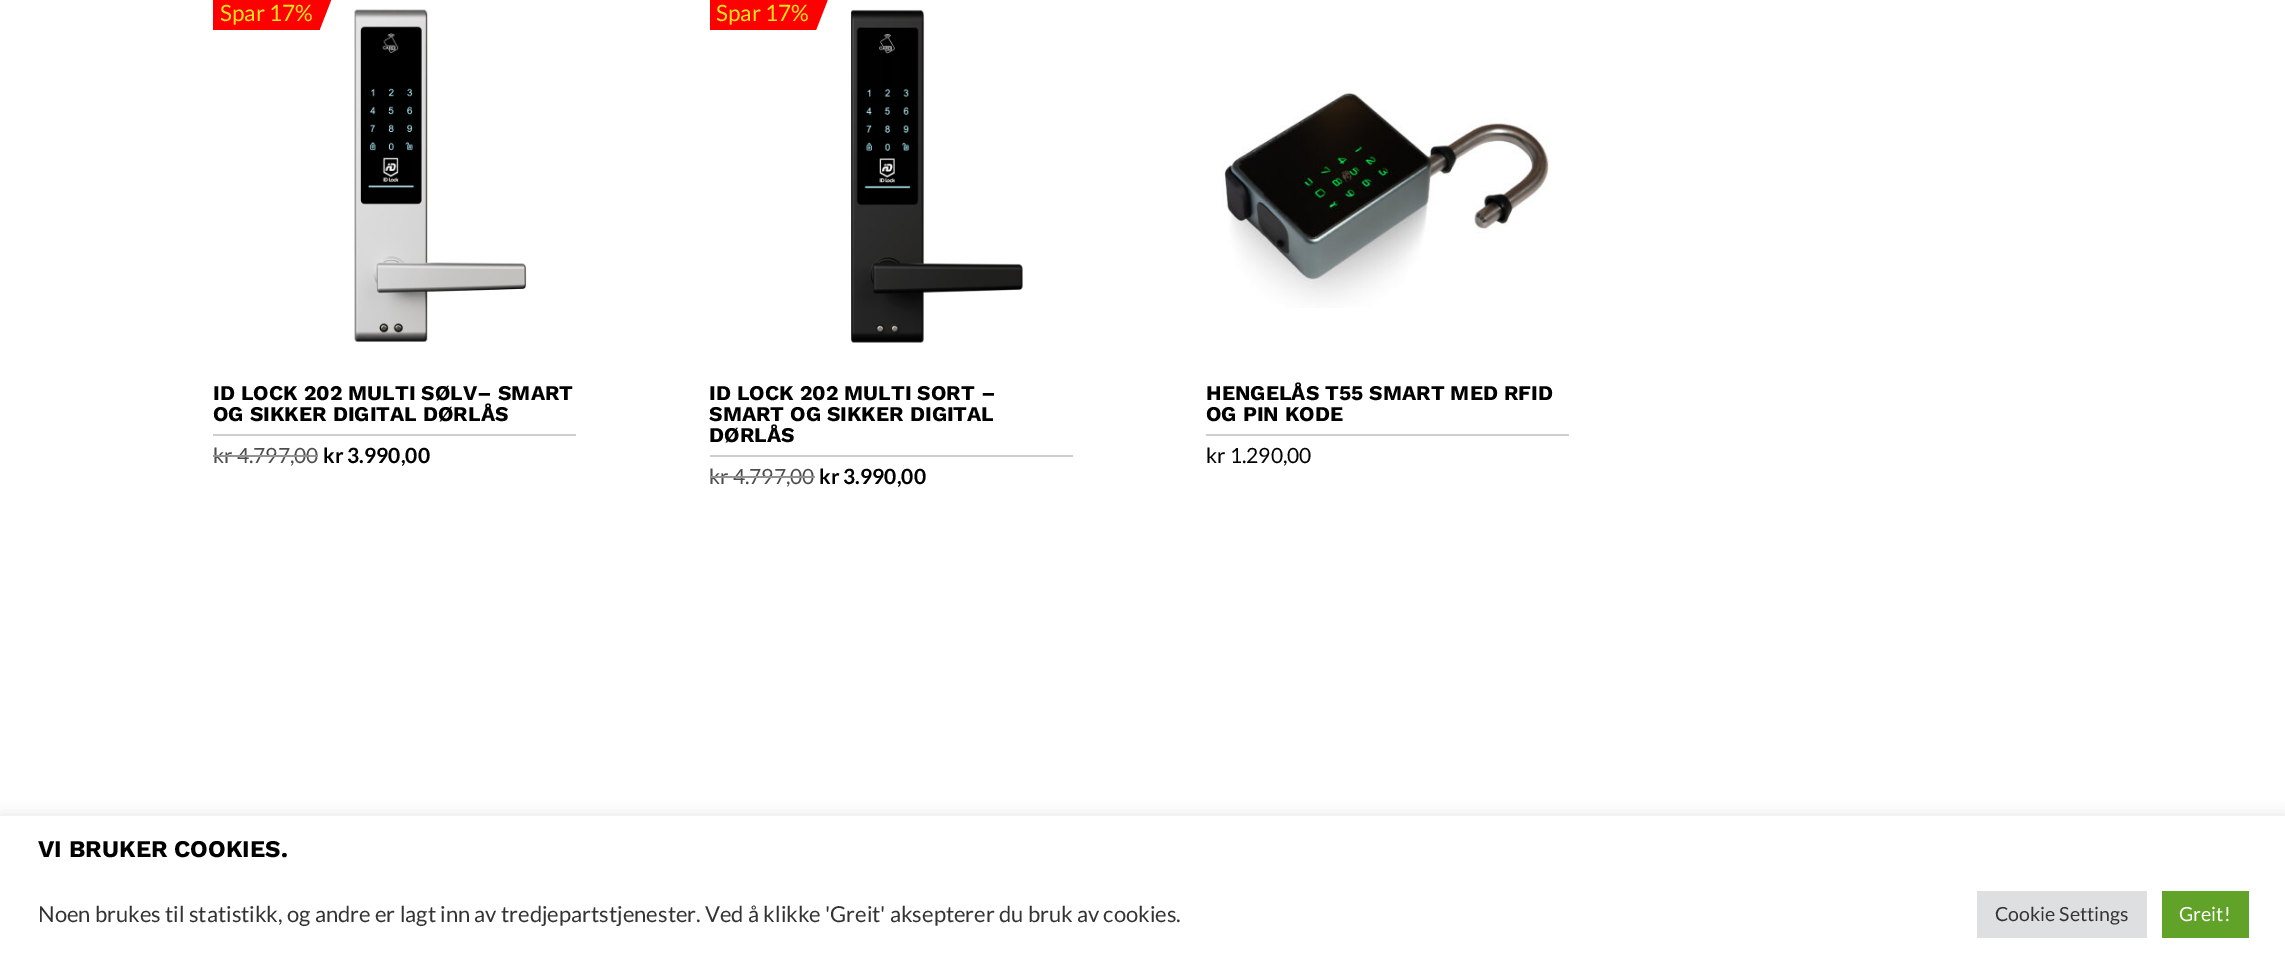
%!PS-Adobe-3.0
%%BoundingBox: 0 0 2285 966
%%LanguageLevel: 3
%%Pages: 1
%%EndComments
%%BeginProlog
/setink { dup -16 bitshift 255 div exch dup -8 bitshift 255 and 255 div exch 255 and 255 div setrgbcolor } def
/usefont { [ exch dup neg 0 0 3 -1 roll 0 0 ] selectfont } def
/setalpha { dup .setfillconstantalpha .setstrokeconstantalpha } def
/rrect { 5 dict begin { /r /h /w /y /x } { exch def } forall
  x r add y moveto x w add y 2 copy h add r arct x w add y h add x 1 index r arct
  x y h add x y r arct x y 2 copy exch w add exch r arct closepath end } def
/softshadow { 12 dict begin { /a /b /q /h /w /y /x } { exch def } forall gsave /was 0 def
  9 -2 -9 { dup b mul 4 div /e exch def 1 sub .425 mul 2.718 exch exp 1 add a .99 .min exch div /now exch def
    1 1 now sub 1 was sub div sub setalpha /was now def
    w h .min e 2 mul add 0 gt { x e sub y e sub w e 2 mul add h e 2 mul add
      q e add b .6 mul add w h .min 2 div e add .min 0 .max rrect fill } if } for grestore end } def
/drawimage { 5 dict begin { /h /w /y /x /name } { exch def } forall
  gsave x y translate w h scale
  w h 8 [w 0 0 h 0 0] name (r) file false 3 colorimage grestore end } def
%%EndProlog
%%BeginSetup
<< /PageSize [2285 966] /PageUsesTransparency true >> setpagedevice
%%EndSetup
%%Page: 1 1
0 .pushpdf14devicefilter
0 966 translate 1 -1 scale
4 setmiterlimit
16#FFFFFF setink
0 0 2285 966 rectfill
16#FF0000 setink
213 0 107 30 rectfill
/Lato-Regular 22.5 usefont
16#FFE41C setink
220 21 moveto (Spar 17%) show
gsave
320 0 15 30 rectclip
16#FF0000 setink
319.5 -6 moveto 333.5 -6 lineto 319.5 30 lineto closepath fill
grestore
(img1.raw) 354 9 173 333 drawimage
16#CECECE setink
213 434 363 2 rectfill
/WorkSans-Bold 21 usefont
16#000000 setink
213 400 moveto (ID LOCK 202 MULTI SØLV– SMART) show
213 421 moveto (OG SIKKER DIGITAL DØRLÅS) show
/Lato-Regular 21 usefont
16#4D4D4D setink
213 463 moveto (kr 4.797,00) show
16#949494 setink
213 455 105 2 rectfill
/Lato-Bold 21 usefont
16#000000 setink
323 463 moveto (kr 3.990,00) show
16#FF0000 setink
710 0 106 30 rectfill
/Lato-Regular 22.5 usefont
16#FFE41C setink
716 21 moveto (Spar 17%) show
16#FF0000 setink
816 -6 moveto 830 -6 lineto 816 30 lineto closepath fill
(img2.raw) 851 9 172 334 drawimage
16#CECECE setink
710 455 363 2 rectfill
/WorkSans-Bold 21 usefont
16#000000 setink
[
    [(ID LOCK 202 MULTI SORT –) 709 400]
    [(SMART OG SIKKER DIGITAL) 709 421]
    [(DØRLÅS) 709 442]
] { aload pop moveto show } forall
/Lato-Regular 21 usefont
16#4D4D4D setink
709 484 moveto (kr 4.797,00) show
16#949494 setink
710 476 105 2 rectfill
/Lato-Bold 21 usefont
16#000000 setink
819 484 moveto (kr 3.990,00) show
(img3.raw) 1222 90 328 218 drawimage
16#CECECE setink
1206 434 363 2 rectfill
/WorkSans-Bold 21 usefont
16#000000 setink
1206 400 moveto (HENGELÅS T55 SMART MED RFID) show
1206 421 moveto (OG PIN KODE) show
/Lato-Regular 21 usefont
1206 463 moveto (kr 1.290,00) show
16#ACABAB setink
0 815 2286 150 0 7.5 0.3 softshadow
16#FFFFFF setink
0 816 2285 150 rectfill
/WorkSans-Bold 24 usefont
16#000000 setink
38 857 moveto (VI BRUKER COOKIES.) show
/Lato-Regular 22 usefont
16#333333 setink
38 922 moveto (Noen brukes til statistikk, og andre er lagt inn av tredjepartstjenester. Ved å klikke 'Greit' aksepterer du bruk av cookies.) show
16#DEDFE0 setink
1977 891 170 47 rectfill
/Lato-Regular 19.5 usefont
16#333333 setink
1995 921 moveto (Cookie Settings) show
16#61A229 setink
2162 891 87 47 rectfill
16#FFFFFF setink
2179 921 moveto (Greit!) show
.poppdf14devicefilter showpage
%%EOF
